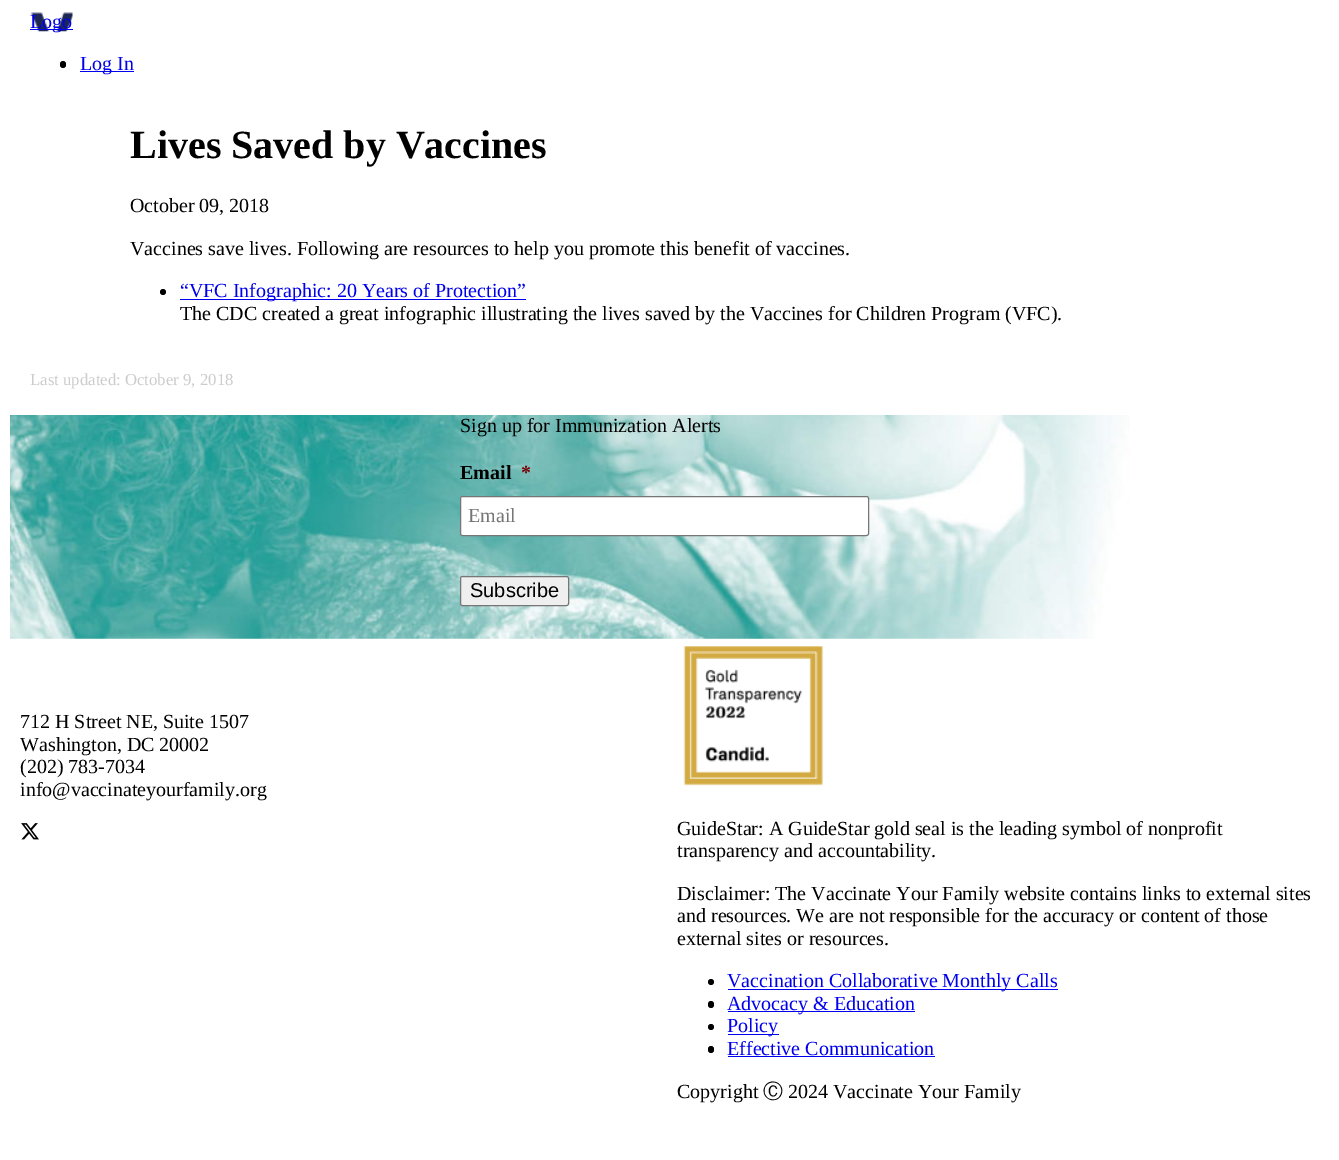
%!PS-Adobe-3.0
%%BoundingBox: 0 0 1339 1160
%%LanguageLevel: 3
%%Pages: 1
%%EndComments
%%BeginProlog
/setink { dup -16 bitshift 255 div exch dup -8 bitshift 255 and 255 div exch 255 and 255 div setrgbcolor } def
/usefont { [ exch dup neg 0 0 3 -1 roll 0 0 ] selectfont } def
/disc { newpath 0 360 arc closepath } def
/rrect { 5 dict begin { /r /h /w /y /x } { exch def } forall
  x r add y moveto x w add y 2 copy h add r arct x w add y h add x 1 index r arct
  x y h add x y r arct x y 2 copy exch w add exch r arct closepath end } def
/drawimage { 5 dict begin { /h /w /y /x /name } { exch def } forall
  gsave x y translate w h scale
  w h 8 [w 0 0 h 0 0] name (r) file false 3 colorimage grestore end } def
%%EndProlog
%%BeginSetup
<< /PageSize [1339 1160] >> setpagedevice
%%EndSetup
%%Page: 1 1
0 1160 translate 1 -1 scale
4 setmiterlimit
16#FFFFFF setink
0 0 1339 1160 rectfill
(img1.raw) 31 12 42 20 drawimage
16#0000EE setink
30 29 43 1 rectfill
/LiberationSerif-Regular 20 usefont
30 28 moveto (Logo) show
16#000000 setink
60 61 6 7 3 rrect fill
16#0000EE setink
80 71 54 1 rectfill
80 70 moveto (Log In) show
/LiberationSerif-Bold 40 usefont
16#000000 setink
130 158 moveto (Lives Saved by Vaccines) show
/LiberationSerif-Regular 20 usefont
130 212 moveto (October 09, 2018) show
130 255 moveto (Vaccines save lives. Following are resources to help you promote this benefit of vaccines.) show
163 292 3 disc fill
16#0000EE setink
180 299 346 1 rectfill
180 297 moveto (“VFC Infographic: 20 Years of Protection”) show
16#000000 setink
180 320 moveto (The CDC created a great infographic illustrating the lives saved by the Vaccines for Children Program \(VFC\).) show
/LiberationSerif-Regular 16.75 usefont
16#CCCCCC setink
30 385 moveto (Last updated: October 9, 2018) show
(img2.raw) 10 415 1120 224 drawimage
/LiberationSerif-Regular 20 usefont
16#000000 setink
460 432 moveto (Sign up for Immunization Alerts) show
/LiberationSerif-Bold 20 usefont
460 479 moveto (Email) show
16#790000 setink
521 479 moveto (*) show
16#FFFFFF setink
460.5 496.5 408 39 2 rrect gsave fill grestore
16#767676 setink
stroke
/LiberationSerif-Regular 20 usefont
16#757575 setink
468 522 moveto (Email) show
16#EFEFEF setink
460.5 576.5 108 29 2 rrect gsave fill grestore
16#767676 setink
stroke
/LiberationSans-Regular 20 usefont
16#000000 setink
470 597 moveto (Subscribe) show
(img3.raw) 31 638 8 1 drawimage
/LiberationSerif-Regular 20 usefont
[
    [(712 H Street NE, Suite 1507) 20 728]
    [(Washington, DC 20002) 20 751]
    [(\(202\) 783-7034) 20 773]
    [(info@vaccinateyourfamily.org) 20 796]
] { aload pop moveto show } forall
(img4.raw) 21 823 18 17 drawimage
(img5.raw) 683 646 141 140 drawimage
[
    [(GuideStar: A GuideStar gold seal is the leading symbol of nonprofit) 677 835]
    [(transparency and accountability.) 677 857]
    [(Disclaimer: The Vaccinate Your Family website contains links to external sites) 677 900]
    [(and resources. We are not responsible for the accuracy or content of those) 677 922]
    [(external sites or resources.) 677 945]
] { aload pop moveto show } forall
711 982 3 disc fill
16#0000EE setink
728 989 330 1 rectfill
727 987 moveto (Vaccination Collaborative Monthly Calls) show
16#000000 setink
708 1001 6 7 3 rrect fill
16#0000EE setink
728 1011 187 1 rectfill
727 1010 moveto (Advocacy & Education) show
16#000000 setink
711 1027 3 disc fill
16#0000EE setink
728 1034 51 1 rectfill
727 1032 moveto (Policy) show
16#000000 setink
708 1046 6 7 3 rrect fill
16#0000EE setink
727 1055 moveto (Effective Communication) show
728 1056 207 1 rectfill
16#000000 setink
677 1098 moveto (Copyright) show
/WenQuanYiZenHei-Medium 20 usefont
763 1098 moveto (Ⓒ) show
/LiberationSerif-Regular 20 usefont
788 1098 moveto (2024 Vaccinate Your Family) show
showpage
%%EOF
